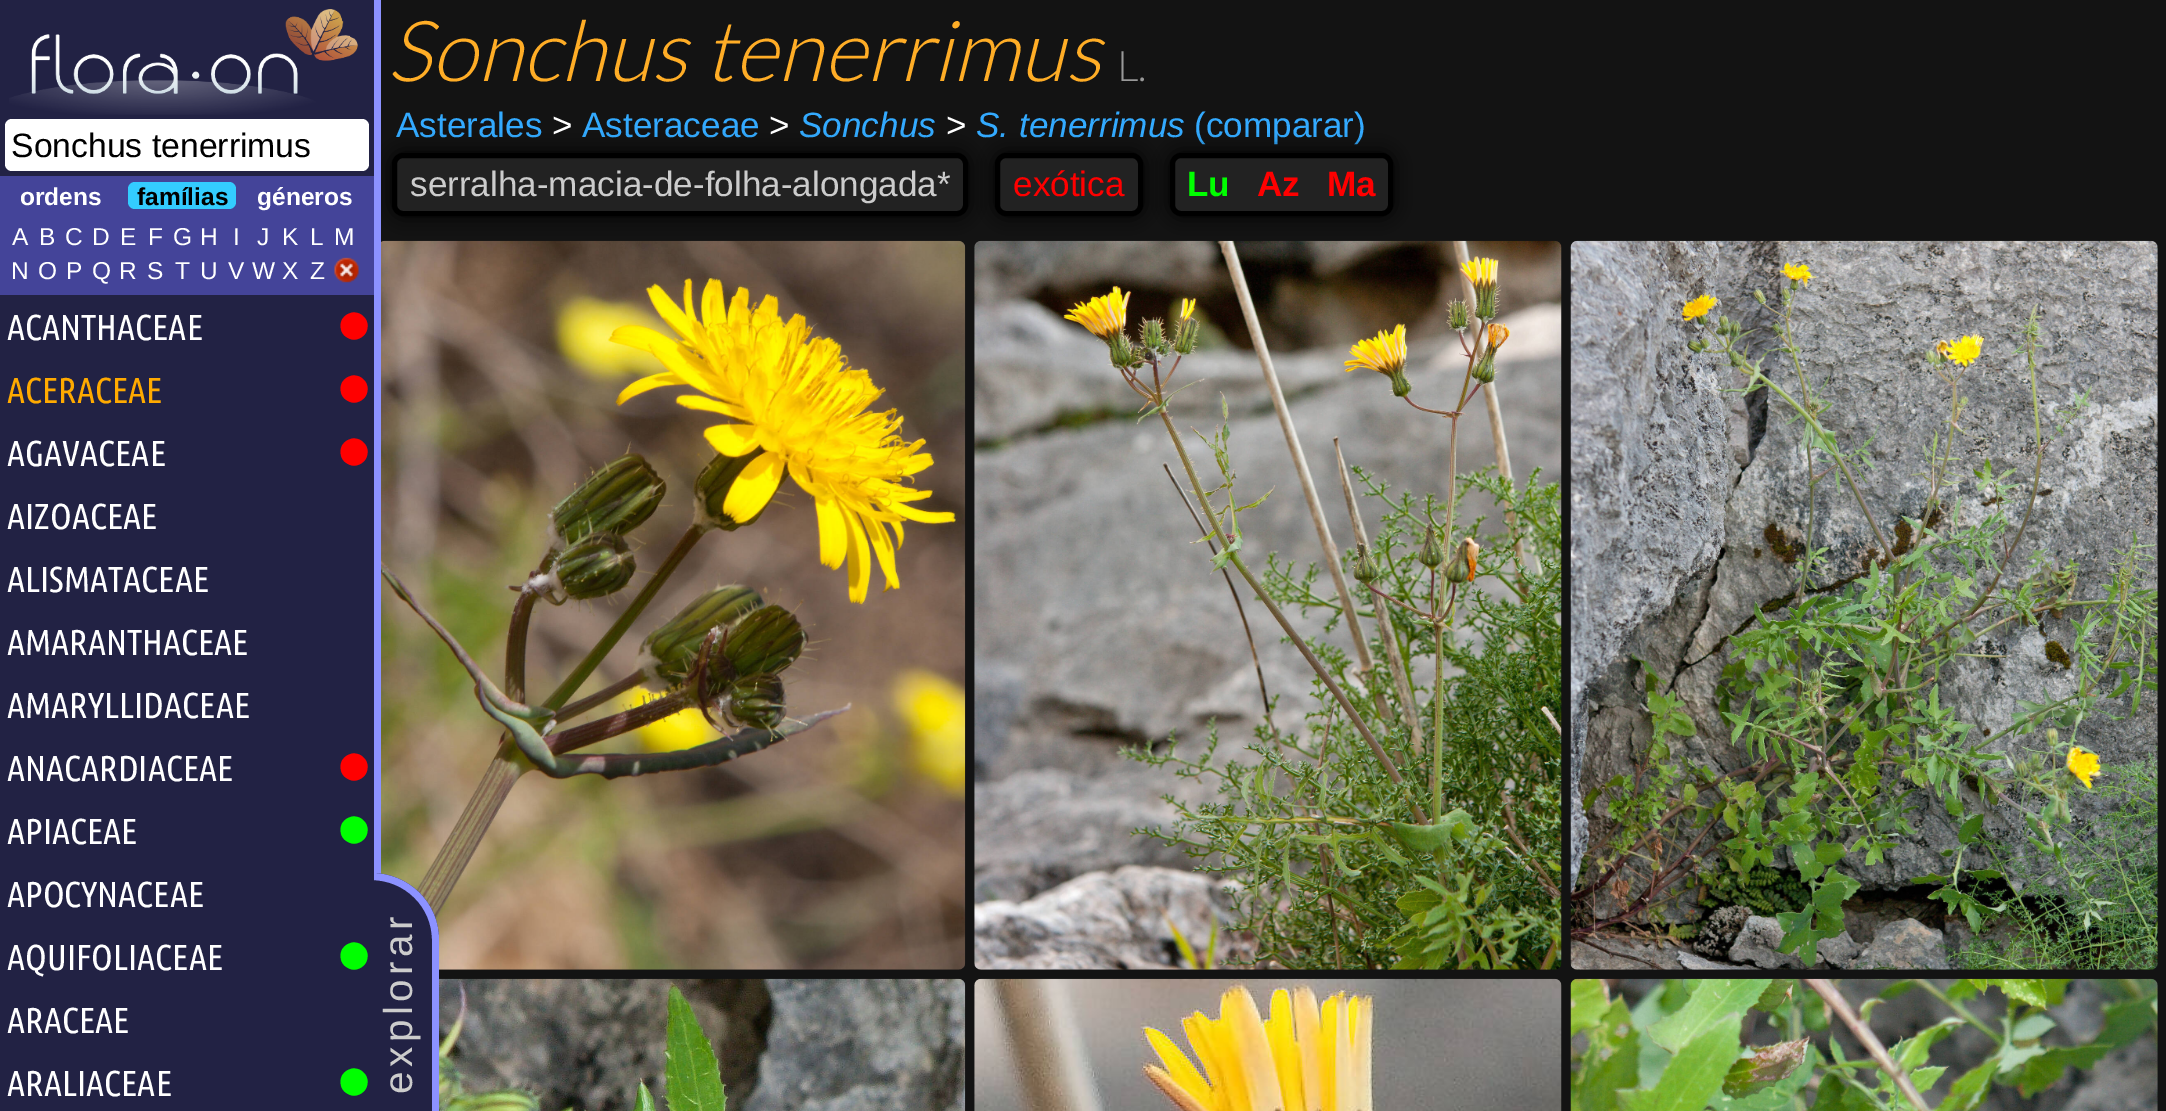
%!PS-Adobe-3.0
%%BoundingBox: 0 0 2166 1111
%%LanguageLevel: 3
%%Pages: 1
%%EndComments
%%BeginProlog
/setink { dup -16 bitshift 255 div exch dup -8 bitshift 255 and 255 div exch 255 and 255 div setrgbcolor } def
/usefont { [ exch dup neg 0 0 3 -1 roll 0 0 ] selectfont } def
/setalpha { dup .setfillconstantalpha .setstrokeconstantalpha } def
/rrect { 5 dict begin { /r /h /w /y /x } { exch def } forall
  x r add y moveto x w add y 2 copy h add r arct x w add y h add x 1 index r arct
  x y h add x y r arct x y 2 copy exch w add exch r arct closepath end } def
/softshadow { 12 dict begin { /a /b /q /h /w /y /x } { exch def } forall gsave /was 0 def
  9 -2 -9 { dup b mul 4 div /e exch def 1 sub .425 mul 2.718 exch exp 1 add a .99 .min exch div /now exch def
    1 1 now sub 1 was sub div sub setalpha /was now def
    w h .min e 2 mul add 0 gt { x e sub y e sub w e 2 mul add h e 2 mul add
      q e add b .6 mul add w h .min 2 div e add .min 0 .max rrect fill } if } for grestore end } def
/drawimage { 5 dict begin { /h /w /y /x /name } { exch def } forall
  gsave x y translate w h scale
  w h 8 [w 0 0 h 0 0] name (r) file false 3 colorimage grestore end } def
%%EndProlog
%%BeginSetup
<< /PageSize [2166 1111] /PageUsesTransparency true >> setpagedevice
%%EndSetup
%%Page: 1 1
0 .pushpdf14devicefilter
0 1111 translate 1 -1 scale
4 setmiterlimit
16#131313 setink
0 0 2166 1111 rectfill
/Lato-LightItalic 84.25 usefont
16#FFAD26 setink
387 81 moveto (Sonchus tenerrimus) show
/Lato-Light 42 usefont
16#999999 setink
1117 81 moveto (L.) show
/LiberationSans-Regular 35.1 usefont
16#33AAFF setink
396 137 moveto (Asterales) show
16#FFFFFF setink
552 137 moveto (>) show
16#33AAFF setink
582 137 moveto (Asteraceae) show
16#FFFFFF setink
769 137 moveto (>) show
/LiberationSans-Italic 35.1 usefont
16#33AAFF setink
799 137 moveto (Sonchus) show
/LiberationSans-Regular 35.1 usefont
16#FFFFFF setink
946 137 moveto (>) show
/LiberationSans-Italic 35.1 usefont
16#33AAFF setink
976 137 moveto (S. tenerrimus) show
/LiberationSans-Regular 35.1 usefont
1194 137 moveto (\(comparar\)) show
16#000000 setink
392 153 576 63 11 9 1 softshadow
16#222222 setink
394.5 155.5 571 58 8.5 rrect gsave fill grestore
16#000000 setink
5 setlinewidth
stroke
16#CCCCCC setink
410 196 moveto (serralha-macia-de-folha-alongada*) show
16#000000 setink
995 153 148 63 11 9 1 softshadow
16#222222 setink
997.5 155.5 143 58 8.5 rrect gsave fill grestore
16#000000 setink
stroke
16#FF0000 setink
1013 196 moveto (exótica) show
16#000000 setink
1170 153 223 63 11 9 1 softshadow
16#222222 setink
1172.5 155.5 218 58 8.5 rrect gsave fill grestore
16#000000 setink
stroke
/LiberationSans-Bold 35.1 usefont
16#00FF00 setink
1187 196 moveto (Lu) show
16#FF0000 setink
1257 196 moveto (Az) show
1327 196 moveto (Ma) show
(img1.raw) 381 240 585 730 drawimage
(img2.raw) 974 240 588 730 drawimage
(img3.raw) 1570 240 588 730 drawimage
(img4.raw) 439 978 527 133 drawimage
(img5.raw) 974 978 588 133 drawimage
(img6.raw) 1570 978 588 133 drawimage
16#8C92FF setink
374 0 7 874 rectfill
16#222244 setink
362 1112 moveto 362 873 lineto 371 873 lineto 409 873 439 903 439 940 curveto 439 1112 lineto closepath fill
16#8C92FF setink
362 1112 moveto 362 873 lineto 371 873 lineto 409 873 439 903 439 940 curveto 439 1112 lineto closepath 362 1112 moveto 362 880 lineto 371 880 lineto 405 880 432 907 432 940 curveto 432 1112 lineto closepath eofill
16#222244 setink
0 0 374 1111 rectfill
(img7.raw) 9 9 349 106 drawimage
16#FFFFFF setink
5 119 364 52 7 rrect fill
/LiberationSans-Regular 33.75 usefont
16#000000 setink
11 157 moveto (Sonchus tenerrimus) show
16#444499 setink
0 176 374 119 rectfill
/LiberationSans-Bold 24.5 usefont
16#FFFFFF setink
20 205 moveto (ordens) show
16#33CCFF setink
128 182 108 27 7 rrect fill
16#000000 setink
137 205 moveto (famílias) show
16#FFFFFF setink
257 205 moveto (géneros) show
/LiberationSans-Regular 24.5 usefont
[
    [(A) 12 245]
    [(B) 39 245]
    [(C) 65 245]
    [(D) 92 245]
    [(E) 120 245]
    [(F) 148 245]
    [(G) 173 245]
    [(H) 200 245]
    [(I) 233 245]
    [(J) 257 245]
    [(K) 282 245]
    [(L) 310 245]
    [(M) 334 245]
    [(N) 11 279]
    [(O) 38 279]
    [(P) 66 279]
    [(Q) 92 279]
    [(R) 119 279]
    [(S) 147 279]
    [(T) 175 279]
    [(U) 200 279]
    [(V) 228 279]
    [(W) 252 279]
    [(X) 282 279]
    [(Z) 310 279]
] { aload pop moveto show } forall
(img8.raw) 334 257 25 26 drawimage
/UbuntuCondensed-Regular 36 usefont
7 340 moveto (ACANTHACEAE) show
/DejaVuSans-Regular 27 usefont
16#FF0000 setink
339 333 moveto (⬤) show
/UbuntuCondensed-Regular 36 usefont
16#FFAA00 setink
7 403 moveto (ACERACEAE) show
/DejaVuSans-Regular 27 usefont
16#FF0000 setink
339 396 moveto (⬤) show
/UbuntuCondensed-Regular 36 usefont
16#FFFFFF setink
7 466 moveto (AGAVACEAE) show
/DejaVuSans-Regular 27 usefont
16#FF0000 setink
339 459 moveto (⬤) show
/UbuntuCondensed-Regular 36 usefont
16#FFFFFF setink
[
    [(AIZOACEAE) 7 529]
    [(ALISMATACEAE) 7 592]
    [(AMARANTHACEAE) 7 655]
    [(AMARYLLIDACEAE) 7 718]
    [(ANACARDIACEAE) 7 781]
] { aload pop moveto show } forall
/DejaVuSans-Regular 27 usefont
16#FF0000 setink
339 774 moveto (⬤) show
/UbuntuCondensed-Regular 36 usefont
16#FFFFFF setink
7 844 moveto (APIACEAE) show
/DejaVuSans-Regular 27 usefont
16#00FF00 setink
339 837 moveto (⬤) show
/UbuntuCondensed-Regular 36 usefont
16#FFFFFF setink
7 907 moveto (APOCYNACEAE) show
7 970 moveto (AQUIFOLIACEAE) show
/DejaVuSans-Regular 27 usefont
16#00FF00 setink
339 963 moveto (⬤) show
/UbuntuCondensed-Regular 36 usefont
16#FFFFFF setink
7 1033 moveto (ARACEAE) show
7 1096 moveto (ARALIACEAE) show
/DejaVuSans-Regular 27 usefont
16#00FF00 setink
339 1089 moveto (⬤) show
/LiberationSans-Regular 40.5 usefont
16#CCCCCC setink
gsave 412 1094 translate -90 rotate 0 0 moveto 4.5 0 (explorar) ashow grestore
.poppdf14devicefilter showpage
%%EOF
